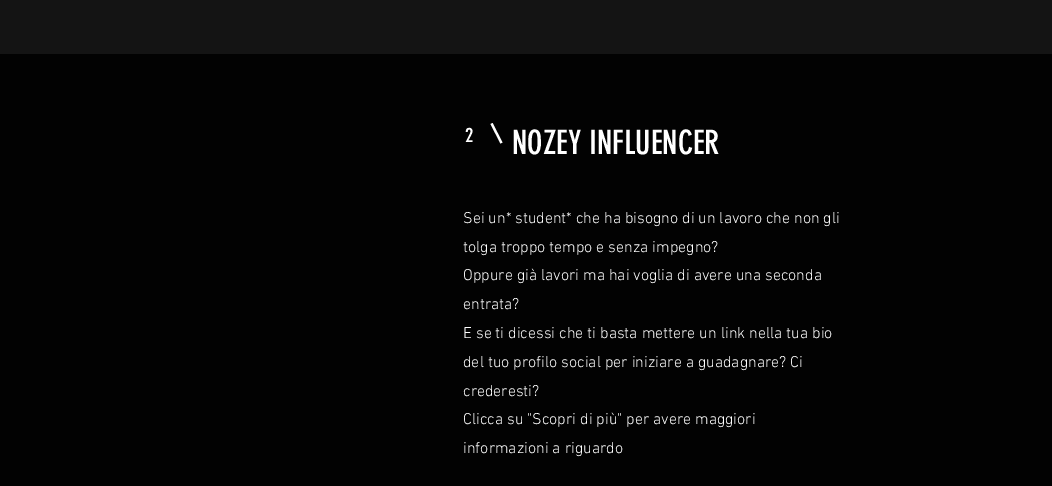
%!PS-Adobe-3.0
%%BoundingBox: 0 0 1052 486
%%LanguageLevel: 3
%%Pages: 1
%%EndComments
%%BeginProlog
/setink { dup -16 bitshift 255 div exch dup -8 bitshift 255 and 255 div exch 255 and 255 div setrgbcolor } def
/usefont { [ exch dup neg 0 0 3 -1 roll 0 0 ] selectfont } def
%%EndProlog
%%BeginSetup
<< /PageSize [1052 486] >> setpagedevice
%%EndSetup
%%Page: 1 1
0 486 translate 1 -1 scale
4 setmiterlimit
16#020202 setink
0 0 1052 486 rectfill
16#141414 setink
0 0 1052 54 rectfill
/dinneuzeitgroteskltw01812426-Regular 20 usefont
16#FFFFFF setink
465 142 moveto (2) show
490.5 124 moveto 492.5 123 lineto 502.5 142.5 lineto 500.5 143.5 lineto closepath fill
/dinneuzeitgroteskltw01812426-Regular 33 usefont
512 154 moveto (NOZEY INFLUENCER) show
/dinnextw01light-Light 16 usefont
[
    [(Sei un* student* che ha bisogno di un lavoro che non gli) 463 223]
    [(tolga troppo tempo e senza impegno?) 463 252]
    [(Oppure già lavori ma hai voglia di avere una seconda) 463 280]
    [(entrata?) 463 309]
    [(E se ti dicessi che ti basta mettere un link nella tua bio) 463 338]
    [(del tuo profilo social per iniziare a guadagnare? Ci) 463 367]
    [(crederesti?) 463 396]
    [(Clicca su "Scopri di più" per avere maggiori) 463 424]
    [(informazioni a riguardo) 463 453]
] { aload pop moveto show } forall
showpage
%%EOF
